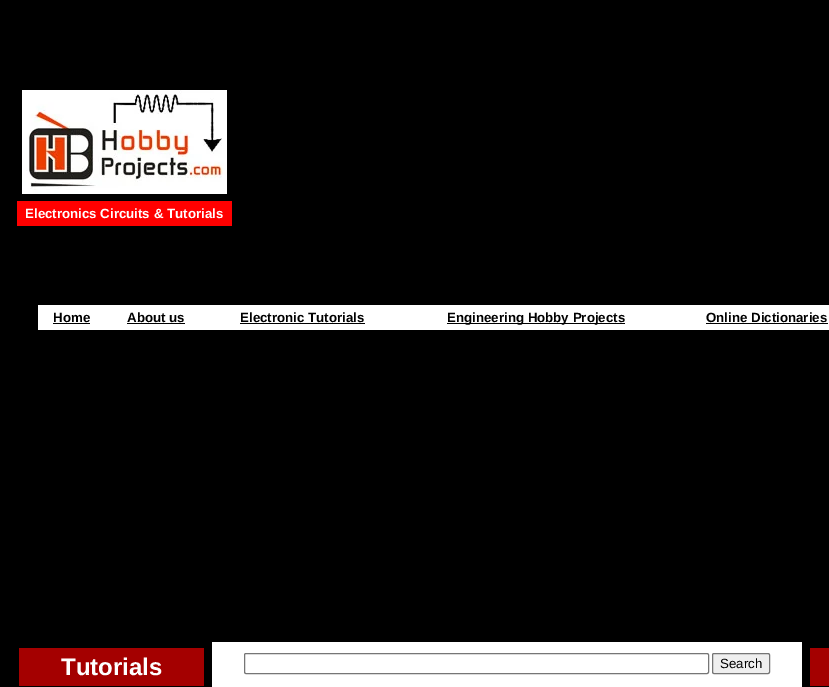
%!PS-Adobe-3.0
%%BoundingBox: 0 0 829 687
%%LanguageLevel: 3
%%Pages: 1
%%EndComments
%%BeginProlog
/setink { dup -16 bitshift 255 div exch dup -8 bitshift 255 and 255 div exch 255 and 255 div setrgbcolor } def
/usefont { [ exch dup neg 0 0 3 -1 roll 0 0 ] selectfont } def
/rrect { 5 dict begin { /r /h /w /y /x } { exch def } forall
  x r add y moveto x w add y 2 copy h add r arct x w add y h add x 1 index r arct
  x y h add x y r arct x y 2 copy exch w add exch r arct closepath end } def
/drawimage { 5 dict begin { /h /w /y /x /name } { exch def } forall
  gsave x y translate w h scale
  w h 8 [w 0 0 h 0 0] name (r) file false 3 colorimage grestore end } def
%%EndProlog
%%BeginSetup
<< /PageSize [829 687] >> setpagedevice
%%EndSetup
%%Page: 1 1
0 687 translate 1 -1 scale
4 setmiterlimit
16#000000 setink
0 0 829 687 rectfill
(img1.raw) 22 90 205 104 drawimage
16#FF0000 setink
17 201 215 25 rectfill
/LiberationSans-Bold 13.3 usefont
16#FFFFFF setink
25 218 moveto (Electronics Circuits & Tutorials) show
38 305 791 25 rectfill
16#000000 setink
53 322 moveto (Home) show
53 323 37 1 rectfill
127 322 moveto (About us) show
127 323 58 1 rectfill
240 322 moveto (Electronic Tutorials) show
240 323 125 1 rectfill
447 323 178 1 rectfill
447 322 moveto (Engineering Hobby Projects) show
706 322 moveto (Online Dictionaries) show
706 323 122 1 rectfill
16#A40000 setink
19 648 185 38 rectfill
/LiberationSans-Bold 24 usefont
16#FFFFFF setink
61 675 moveto (Tutorials) show
212 642 590 45 rectfill
16#767676 setink
244.5 653.5 464 20 1.5 rrect stroke
16#EFEFEF setink
712.5 653.5 57 20 1.5 rrect gsave fill grestore
16#767676 setink
stroke
/LiberationSans-Regular 13.3 usefont
16#000000 setink
720 668 moveto (Search) show
16#A40000 setink
810 648 19 38 rectfill
showpage
%%EOF
